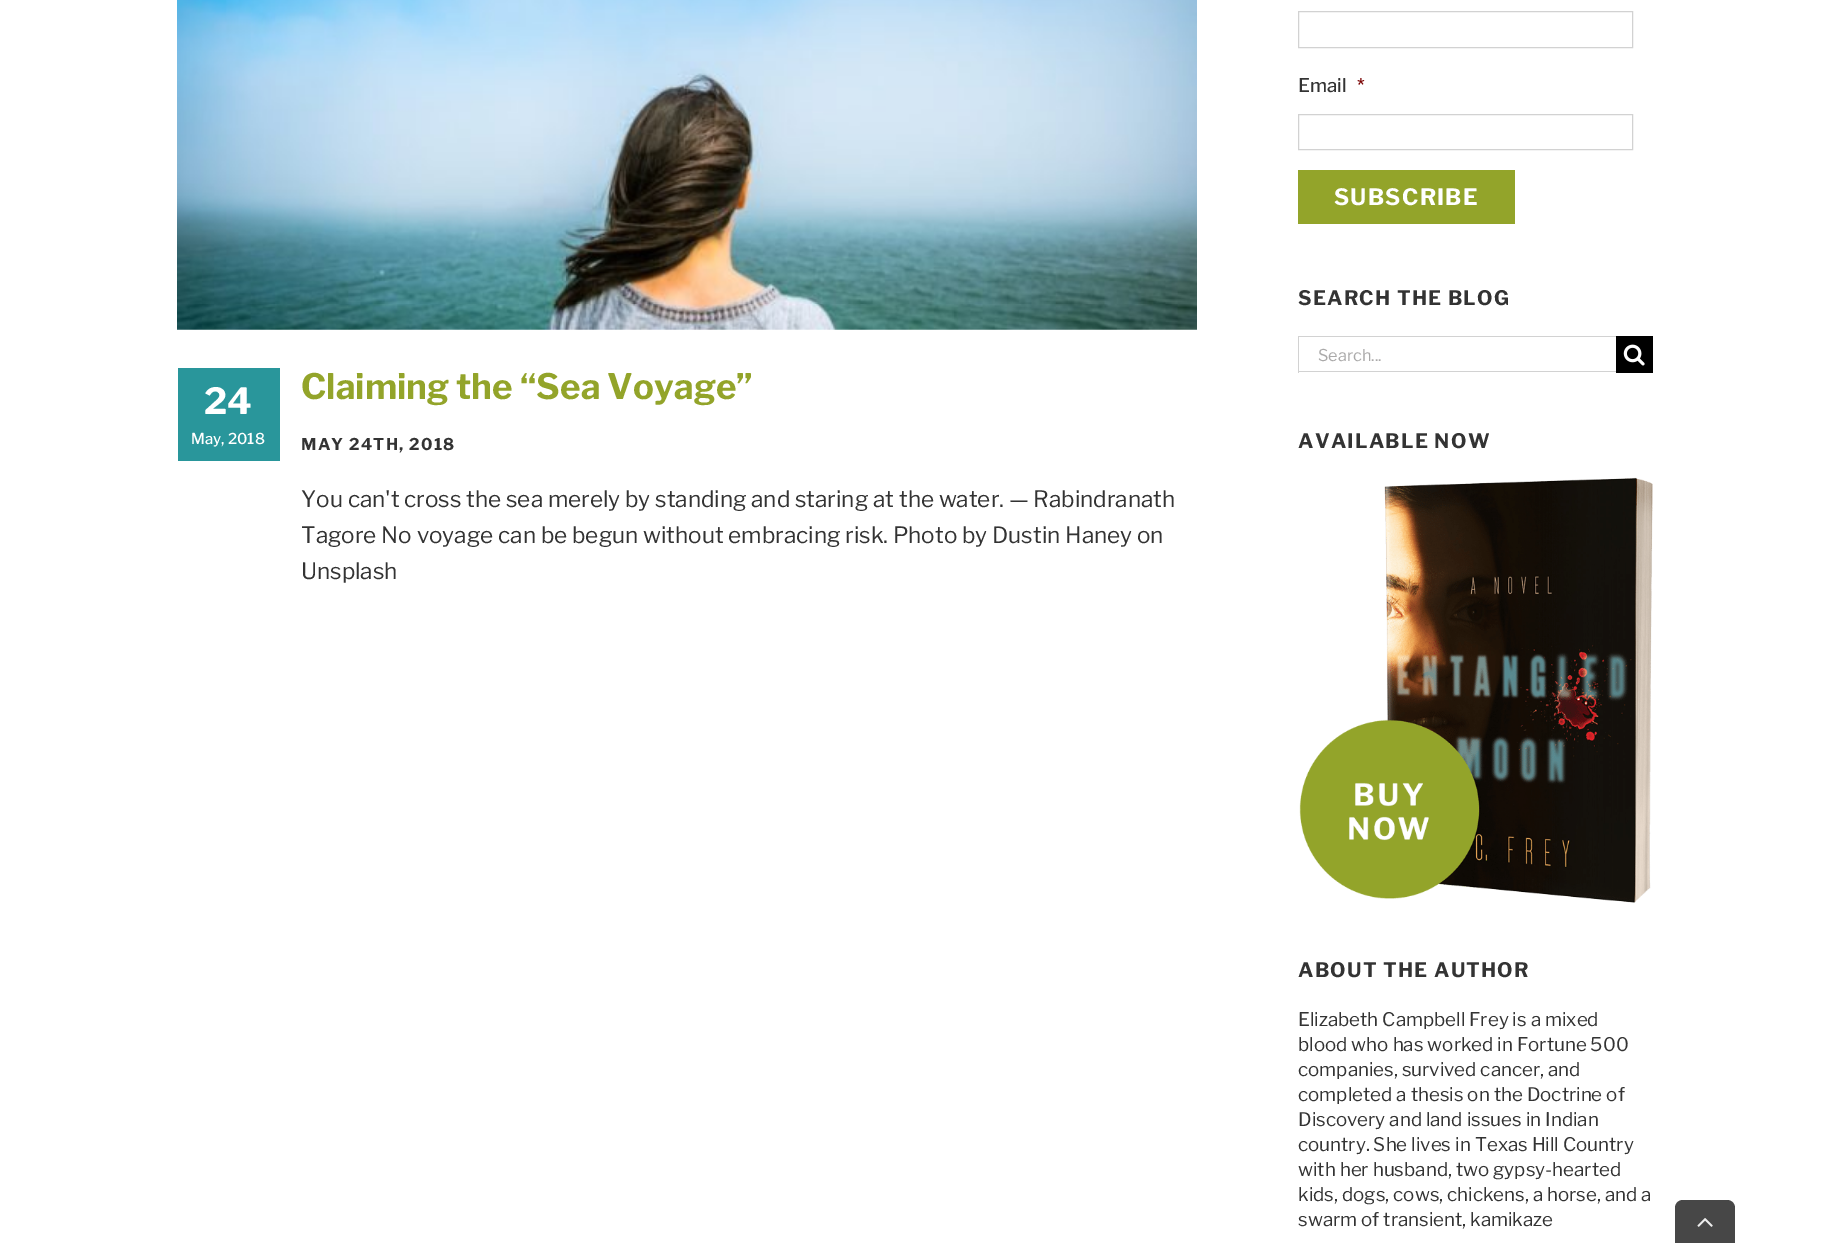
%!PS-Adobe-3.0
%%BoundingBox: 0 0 1828 1243
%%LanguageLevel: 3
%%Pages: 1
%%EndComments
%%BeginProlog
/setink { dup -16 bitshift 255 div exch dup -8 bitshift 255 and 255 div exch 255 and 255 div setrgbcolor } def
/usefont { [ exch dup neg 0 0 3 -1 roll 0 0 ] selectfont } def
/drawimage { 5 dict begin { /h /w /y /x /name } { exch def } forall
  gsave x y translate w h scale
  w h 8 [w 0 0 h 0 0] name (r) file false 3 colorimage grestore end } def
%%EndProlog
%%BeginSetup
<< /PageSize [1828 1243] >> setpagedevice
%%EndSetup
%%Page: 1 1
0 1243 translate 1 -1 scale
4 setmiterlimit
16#FFFFFF setink
0 0 1828 1243 rectfill
(img1.raw) 177 0 1020 330 drawimage
16#29969B setink
178 368 102 93 rectfill
/LibreFranklin-Bold 36 usefont
16#FFFFFF setink
204 414 moveto (24) show
/LibreFranklin-Medium 15 usefont
191 444 moveto (May, 2018) show
/LibreFranklin-Bold 35 usefont
16#93A42A setink
301 399 moveto (Claiming the “Sea Voyage”) show
/LibreFranklin-Bold 16.25 usefont
16#333333 setink
301 450 moveto 1.25 0 (MAY 24TH, 2018) ashow
/LibreFranklin-Regular 22.5 usefont
[
    [(You can't cross the sea merely by standing and staring at the water. — Rabindranath) 301 507]
    [(Tagore No voyage can be begun without embracing risk. Photo by Dustin Haney on) 301 543]
    [(Unsplash) 301 579]
] { aload pop moveto show } forall
16#D2D2D2 setink
1298.5 11.5 334 36 rectstroke
/LibreFranklin-Medium 18.75 usefont
16#333333 setink
1298 92 moveto (Email) show
16#790000 setink
1357 92 moveto (*) show
16#D2D2D2 setink
1298.5 114.5 334 35 rectstroke
16#93A42A setink
1298 170 217 54 rectfill
/LibreFranklin-Bold 22.5 usefont
16#FFFFFF setink
1334 205 moveto 1.25 0 (SUBSCRIBE) ashow
/LibreFranklin-Bold 20 usefont
16#333333 setink
1298 305 moveto 1.25 0 (SEARCH THE BLOG) ashow
[
    [1298 336 318 1 16#D2D2D2]
    [1298 371 318 1 16#D2D2D2]
    [1298 336 1 37 16#D2D2D2]
] { aload pop setink rectfill } forall
/LibreFranklin-Regular 16.25 usefont
16#AAA9A9 setink
1318 361 moveto (Search...) show
16#000000 setink
1616 336 37 37 rectfill
(img2.raw) 1623 344 22 22 drawimage
/LibreFranklin-Bold 20 usefont
16#333333 setink
1298 448 moveto 1.25 0 (AVAILABLE NOW) ashow
(img3.raw) 1299 477 354 426 drawimage
1298 977 moveto 1.25 0 (ABOUT THE AUTHOR) ashow
/LibreFranklin-Regular 18.75 usefont
[
    [(Elizabeth Campbell Frey is a mixed) 1298 1026]
    [(blood who has worked in Fortune 500) 1298 1051]
    [(companies, survived cancer, and) 1298 1076]
    [(completed a thesis on the Doctrine of) 1298 1101]
    [(Discovery and land issues in Indian) 1298 1126]
    [(country. She lives in Texas Hill Country) 1298 1151]
    [(with her husband, two gypsy-hearted) 1298 1176]
    [(kids, dogs, cows, chickens, a horse, and a) 1298 1201]
    [(swarm of transient, kamikaze) 1298 1226]
] { aload pop moveto show } forall
16#474747 setink
1683 1200 moveto 1727 1200 lineto 1731.5 1200 1735 1203.5 1735 1208 curveto 1735 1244 lineto 1675 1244 lineto 1675 1208 lineto 1675 1203.5 1678.5 1200 1683 1200 curveto closepath fill
(img4.raw) 1697 1218 16 9 drawimage
showpage
%%EOF
